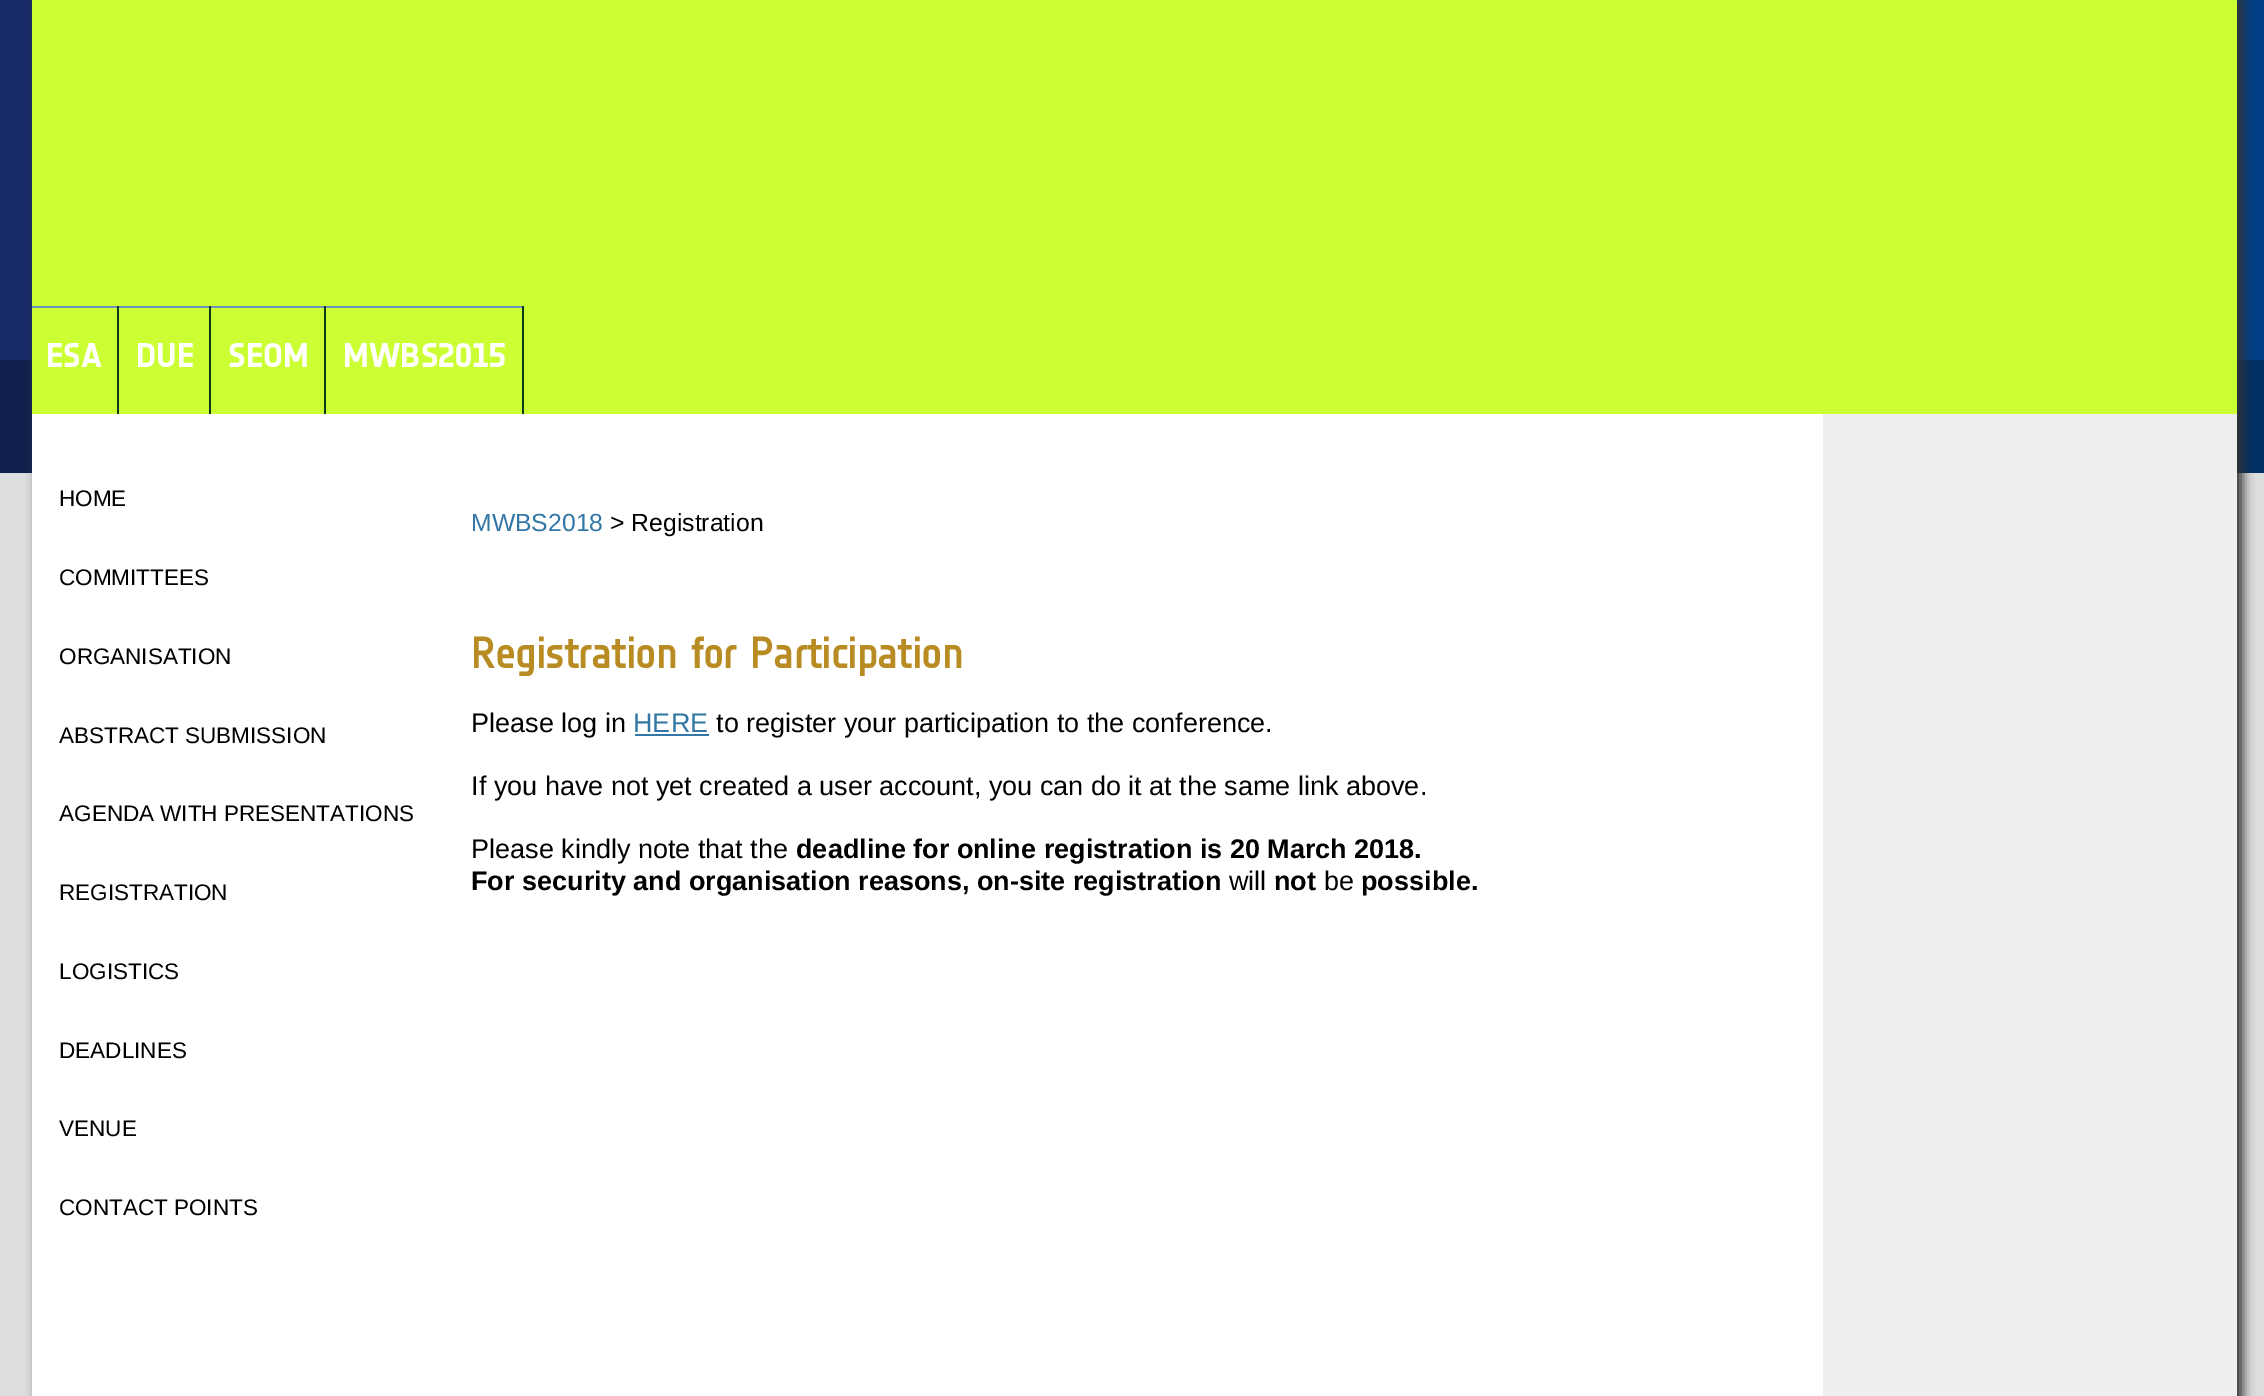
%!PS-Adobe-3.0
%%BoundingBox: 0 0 2264 1396
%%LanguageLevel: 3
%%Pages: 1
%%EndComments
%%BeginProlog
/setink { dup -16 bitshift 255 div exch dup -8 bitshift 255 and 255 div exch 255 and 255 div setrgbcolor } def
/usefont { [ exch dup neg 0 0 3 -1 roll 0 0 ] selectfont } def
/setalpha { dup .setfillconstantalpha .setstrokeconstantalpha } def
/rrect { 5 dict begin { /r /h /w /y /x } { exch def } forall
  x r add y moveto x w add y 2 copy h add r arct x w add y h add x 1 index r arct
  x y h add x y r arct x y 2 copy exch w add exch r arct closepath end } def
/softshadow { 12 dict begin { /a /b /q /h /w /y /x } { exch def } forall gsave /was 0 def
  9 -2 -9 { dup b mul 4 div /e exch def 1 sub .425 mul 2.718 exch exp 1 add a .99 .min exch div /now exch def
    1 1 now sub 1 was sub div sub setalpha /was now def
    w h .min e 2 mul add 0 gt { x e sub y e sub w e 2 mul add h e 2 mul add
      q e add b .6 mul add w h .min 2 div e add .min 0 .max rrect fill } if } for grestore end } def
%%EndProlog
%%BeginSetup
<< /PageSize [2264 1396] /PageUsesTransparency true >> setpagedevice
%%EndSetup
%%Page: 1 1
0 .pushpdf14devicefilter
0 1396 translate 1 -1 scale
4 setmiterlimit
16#DDDDDF setink
0 0 2264 1396 rectfill
gsave 0 0 moveto 2264 0 lineto 2264 360 lineto 0 360 lineto closepath clip newpath
<< /ShadingType 2 /ColorSpace /DeviceRGB /Coords [0 180 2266 180] /Extend [true true] /Function << /FunctionType 2 /Domain [0 1] /C0 [0.102 0.169 0.408] /C1 [0.008 0.247 0.525] /N 1 >> >> shfill grestore
gsave 0 360 moveto 2264 360 lineto 2264 473 lineto 0 473 lineto closepath clip newpath
<< /ShadingType 2 /ColorSpace /DeviceRGB /Coords [0 416 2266 416] /Extend [true true] /Function << /FunctionType 2 /Domain [0 1] /C0 [0.075 0.125 0.306] /C1 [0.004 0.188 0.392] /N 1 >> >> shfill grestore
16#323232 setink
38 0 2205 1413 0 5.5 1 softshadow
[
    [32 414 1791 982 16#FFFFFF]
    [32 0 2205 414 16#CCFF33]
    [32 306 492 2 16#7092BE]
    [117 306 2 108 16#0C3D1B]
] { aload pop setink rectfill } forall
/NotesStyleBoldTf-Bold 33.75 usefont
16#FFFFFF setink
46 367 moveto (ESA) show
16#0C3D1B setink
209 306 2 108 rectfill
16#FFFFFF setink
136 367 moveto (DUE) show
16#0C3D1B setink
324 306 2 108 rectfill
16#FFFFFF setink
228 367 moveto (SEOM) show
16#0C3D1B setink
522 306 2 108 rectfill
16#FFFFFF setink
343 367 moveto (MWBS2015) show
/LiberationSans-Regular 22.5 usefont
16#000000 setink
[
    [(HOME) 59 506]
    [(COMMITTEES) 59 585]
    [(ORGANISATION) 59 664]
    [(ABSTRACT SUBMISSION) 59 743]
    [(AGENDA WITH PRESENTATIONS) 59 821]
    [(REGISTRATION) 59 900]
    [(LOGISTICS) 59 979]
    [(DEADLINES) 59 1058]
    [(VENUE) 59 1136]
    [(CONTACT POINTS) 59 1215]
] { aload pop moveto show } forall
/LiberationSans-Regular 24.75 usefont
16#3277A6 setink
471 531 moveto (MWBS2018) show
16#000000 setink
610 531 moveto (> Registration) show
/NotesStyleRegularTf-Bold 42.75 usefont
16#B88C23 setink
471 668 moveto (Registration for Participation) show
/LiberationSans-Regular 27 usefont
16#000000 setink
471 732 moveto (Please log in) show
16#3277A6 setink
633 732 moveto (HERE) show
635 734 74 2 rectfill
16#000000 setink
[
    [(to register your participation to the conference.) 716 732]
    [(If you have not yet created a user account, you can do it at the same link above.) 471 795]
    [(Please kindly note that the) 471 858]
] { aload pop moveto show } forall
/LiberationSans-Bold 27 usefont
796 858 moveto (deadline for online registration is 20 March 2018.) show
471 890 moveto (For security and organisation reasons, on-site registration) show
/LiberationSans-Regular 27 usefont
1229 890 moveto (will) show
/LiberationSans-Bold 27 usefont
1274 890 moveto (not) show
/LiberationSans-Regular 27 usefont
1324 890 moveto (be) show
/LiberationSans-Bold 27 usefont
1361 890 moveto (possible.) show
16#EEEEEE setink
1823 414 414 982 rectfill
.poppdf14devicefilter showpage
%%EOF
